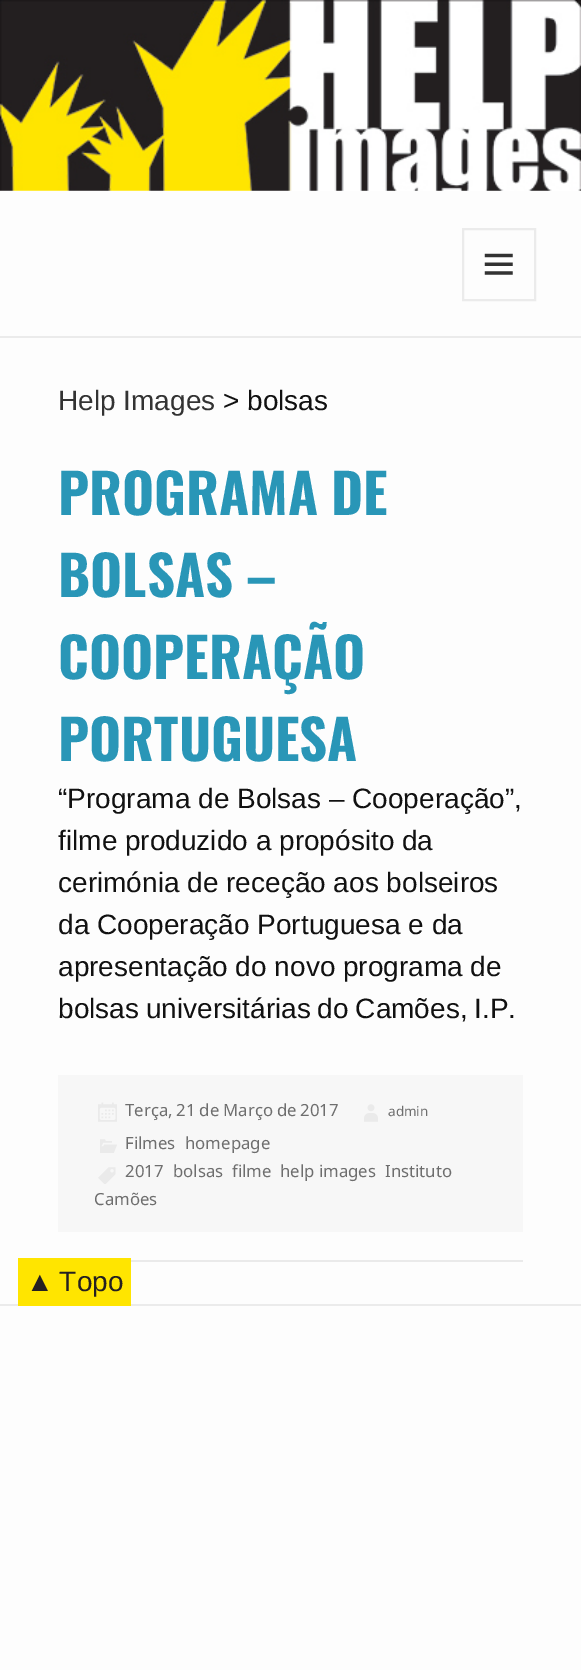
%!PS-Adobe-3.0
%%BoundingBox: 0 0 581 1670
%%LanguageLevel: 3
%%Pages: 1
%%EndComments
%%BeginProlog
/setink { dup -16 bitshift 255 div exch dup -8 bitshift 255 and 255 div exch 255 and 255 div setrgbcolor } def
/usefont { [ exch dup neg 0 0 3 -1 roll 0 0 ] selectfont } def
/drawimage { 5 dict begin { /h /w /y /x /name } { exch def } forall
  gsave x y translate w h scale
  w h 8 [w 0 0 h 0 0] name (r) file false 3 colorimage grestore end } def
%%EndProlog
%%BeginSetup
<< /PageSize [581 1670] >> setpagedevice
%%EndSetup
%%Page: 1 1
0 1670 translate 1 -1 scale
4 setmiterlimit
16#FDFDFD setink
0 0 581 1670 rectfill
(img1.raw) 0 0 581 191 drawimage
16#EBEBEB setink
0 336 581 2 rectfill
2 setlinewidth
463 229 72 71 rectstroke
(img2.raw) 484 253 29 22 drawimage
/LiberationSans-Regular 28 usefont
16#333333 setink
58 410 moveto (Help Images) show
16#111111 setink
223 410 moveto (> bolsas) show
16#EAEAEA setink
131 1260 392 2 rectfill
/Oswald-Bold 54.75 usefont
16#2996B7 setink
58 515 moveto -1 0 32 (PROGRAMA DE) widthshow
58 597 moveto -1 0 32 (BOLSAS –) widthshow
58 679 moveto (COOPERAÇÃO) show
58 761 moveto (PORTUGUESA) show
/LiberationSans-Regular 28 usefont
16#111111 setink
[
    [(“Programa de Bolsas – Cooperação”,) 58 808]
    [(filme produzido a propósito da) 58 850]
    [(cerimónia de receção aos bolseiros) 58 892]
    [(da Cooperação Portuguesa e da) 58 934]
    [(apresentação do novo programa de) 58 976]
] { aload pop moveto show } forall
58 1018 moveto -1 0 32 (bolsas universitárias do Camões, I.P.) widthshow
16#F7F7F7 setink
58 1075 465 157 rectfill
(img3.raw) 98 1102 19 20 drawimage
/NotoSans-Regular 16.75 usefont
16#6E6E6E setink
125 1116 moveto -0.5 0 32 (Terça, 21 de Março de 2017) widthshow
(img4.raw) 364 1104 14 18 drawimage
/NotoSans-Regular 13.5 usefont
388 1116 moveto (admin) show
(img5.raw) 100 1139 17 14 drawimage
/NotoSans-Regular 16.75 usefont
125 1149 moveto (Filmes) show
185 1149 moveto (homepage) show
(img6.raw) 98 1167 18 17 drawimage
[
    [(2017) 125 1177]
    [(bolsas) 173 1177]
    [(filme) 232 1177]
    [(help images) 280 1177]
    [(Instituto) 385 1177]
    [(Camões) 94 1205]
] { aload pop moveto show } forall
16#EBEBEB setink
0 1304 581 2 rectfill
16#FFE500 setink
18 1258 113 48 rectfill
/LiberationSans-Regular 28 usefont
16#242021 setink
26 1291 moveto -2 0 32 (▲ Topo) widthshow
showpage
%%EOF
